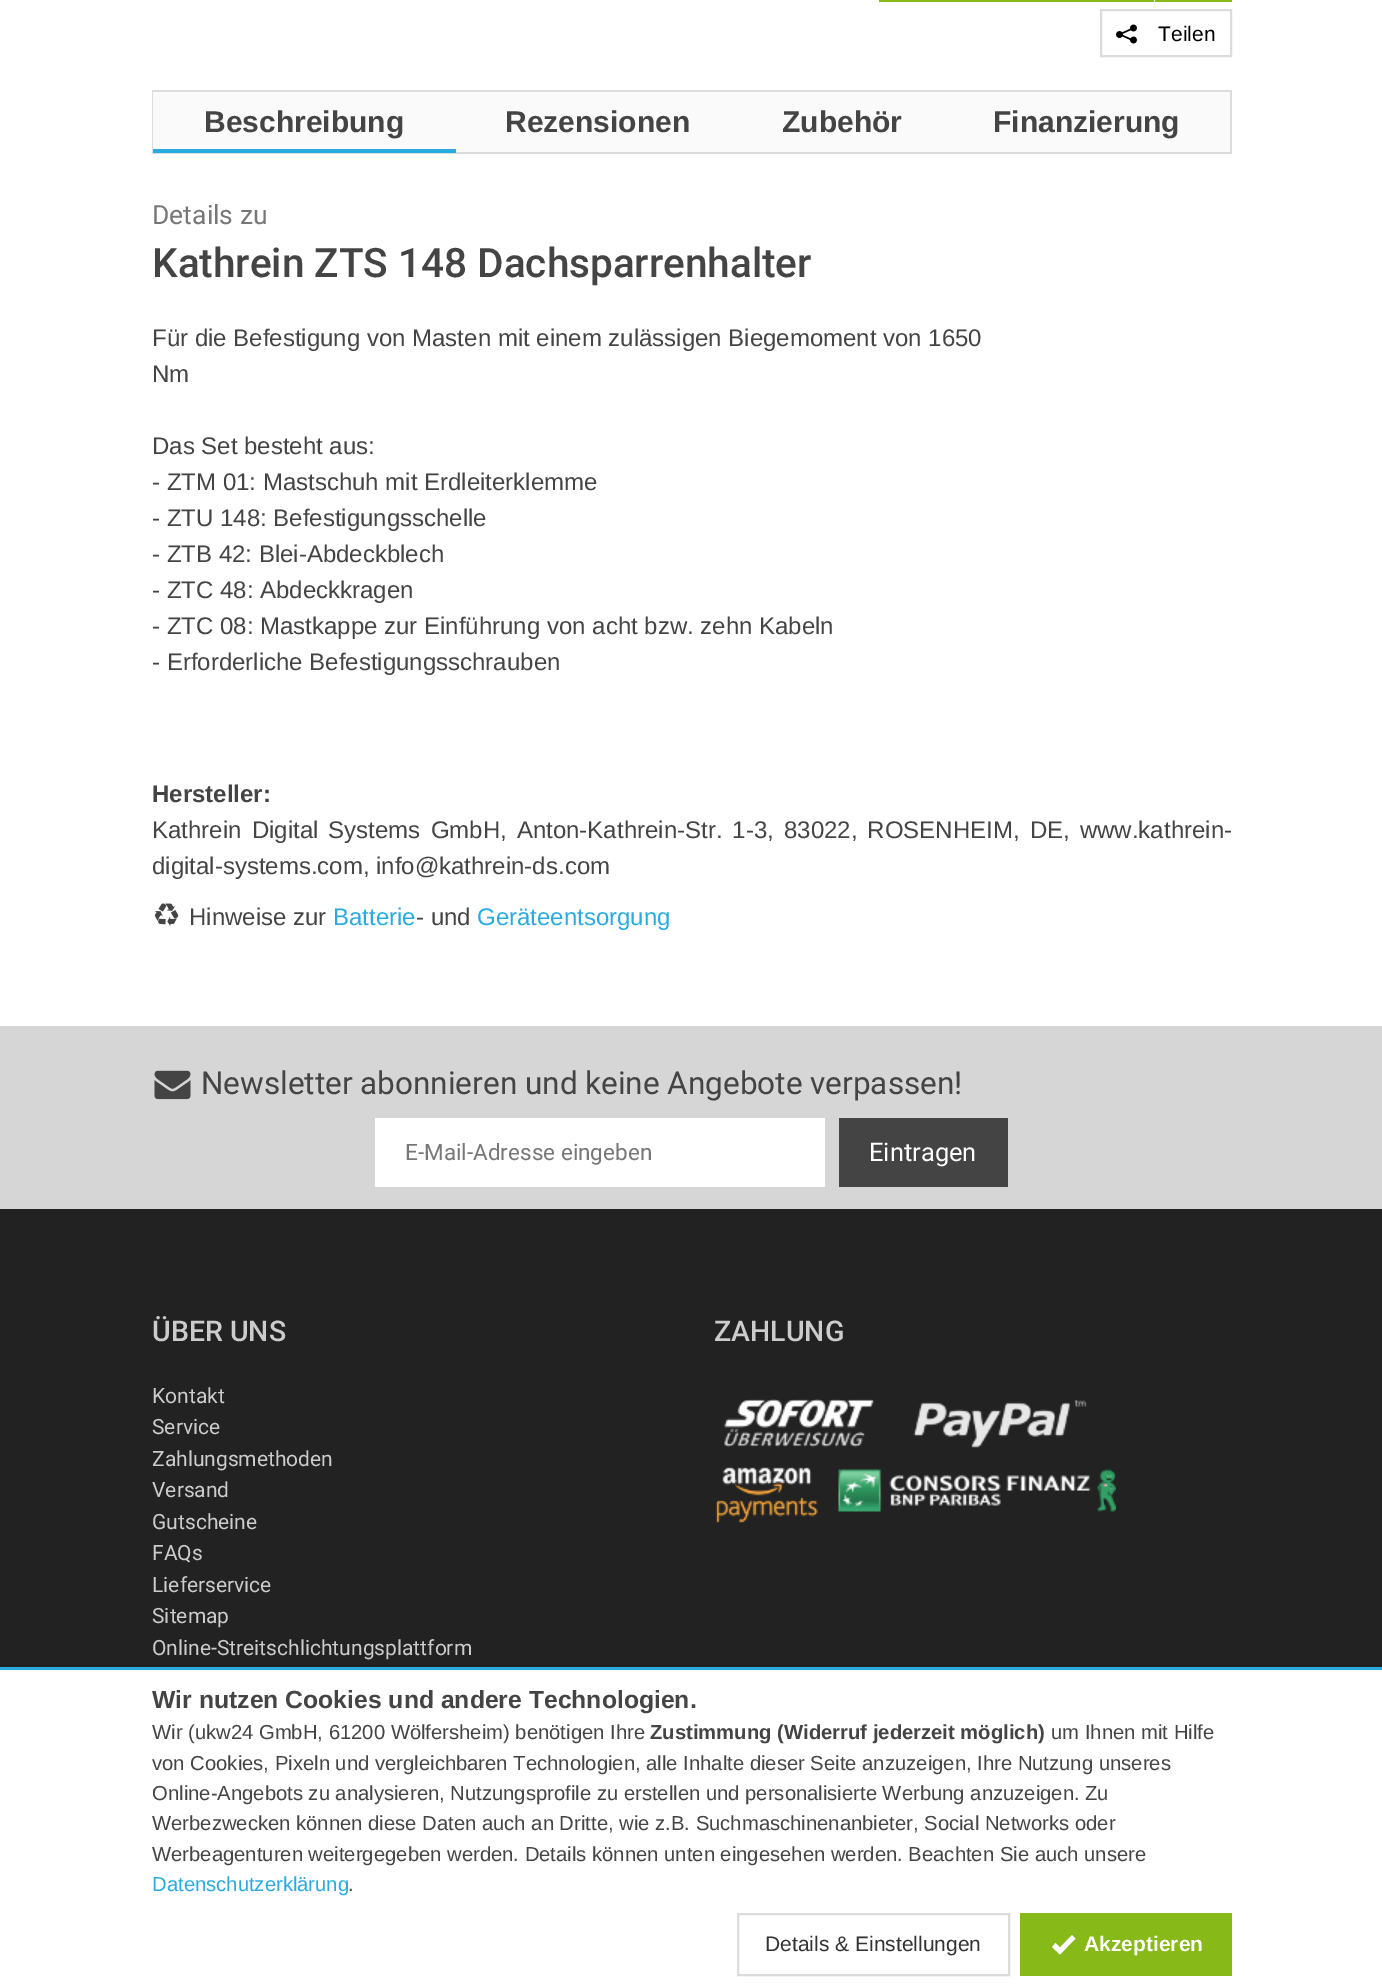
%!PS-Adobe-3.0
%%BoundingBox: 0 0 1382 1986
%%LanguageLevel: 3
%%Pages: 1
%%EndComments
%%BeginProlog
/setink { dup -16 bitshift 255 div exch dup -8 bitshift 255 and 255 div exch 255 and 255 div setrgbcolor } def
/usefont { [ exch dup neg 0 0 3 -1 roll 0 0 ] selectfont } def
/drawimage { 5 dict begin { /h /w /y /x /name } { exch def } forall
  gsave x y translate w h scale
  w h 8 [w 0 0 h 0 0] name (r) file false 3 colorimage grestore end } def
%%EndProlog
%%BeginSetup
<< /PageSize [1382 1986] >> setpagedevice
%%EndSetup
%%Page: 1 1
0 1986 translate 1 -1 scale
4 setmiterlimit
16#FFFFFF setink
0 0 1382 1986 rectfill
16#87B919 setink
879 0 275 2 rectfill
1155 0 77 2 rectfill
16#DCDCDC setink
2 setlinewidth
1101 10 130 46 rectstroke
(img1.raw) 1116 24 21 20 drawimage
/LiberationSans-Regular 21 usefont
16#000000 setink
1158 41 moveto (Teilen) show
[
    [152 152 1080 2 16#DCDCDC]
    [152 90 1080 2 16#DCDCDC]
    [1230 90 2 63 16#DCDCDC]
    [152 90 2 63 16#DCDCDC]
    [153 92 303 57 16#FAFAFA]
] { aload pop setink rectfill } forall
/LiberationSans-Bold 30 usefont
16#444444 setink
204 132 moveto (Beschreibung) show
16#FAFAFA setink
456 92 774 60 rectfill
16#444444 setink
[
    [(Rezensionen) 505 132]
    [(Zubehör) 782 132]
    [(Finanzierung) 993 132]
] { aload pop moveto show } forall
16#29ABE2 setink
153 149 303 4 rectfill
/Roboto-Regular 26.5 usefont
16#777777 setink
152 224 moveto (Details zu) show
/Roboto-Medium 40.5 usefont
16#444444 setink
152 277 moveto (Kathrein ZTS 148 Dachsparrenhalter) show
/LiberationSans-Regular 24 usefont
[
    [(Für die Befestigung von Masten mit einem zulässigen Biegemoment von 1650) 152 346]
    [(Nm) 152 382]
    [(Das Set besteht aus:) 152 454]
    [(- ZTM 01: Mastschuh mit Erdleiterklemme) 152 490]
    [(- ZTU 148: Befestigungsschelle) 152 526]
    [(- ZTB 42: Blei-Abdeckblech) 152 562]
    [(- ZTC 48: Abdeckkragen) 152 598]
    [(- ZTC 08: Mastkappe zur Einführung von acht bzw. zehn Kabeln) 152 634]
    [(- Erforderliche Befestigungsschrauben) 152 670]
] { aload pop moveto show } forall
/LiberationSans-Bold 24 usefont
152 802 moveto (Hersteller:) show
/LiberationSans-Regular 24 usefont
152 838 moveto 3.5 0 32 (Kathrein Digital Systems GmbH, Anton-Kathrein-Str. 1-3, 83022, ROSENHEIM, DE, www.kathrein-) widthshow
152 874 moveto (digital-systems.com, info@kathrein-ds.com) show
(img2.raw) 154 903 25 24 drawimage
189 925 moveto (Hinweise zur) show
16#29ABE2 setink
333 925 moveto (Batterie) show
16#444444 setink
416 925 moveto (- und) show
16#29ABE2 setink
477 925 moveto (Geräteentsorgung) show
16#222222 setink
0 1209 1382 458 rectfill
16#D6D6D6 setink
0 1026 1382 183 rectfill
(img3.raw) 154 1070 37 30 drawimage
/Roboto-Regular 31.5 usefont
16#444444 setink
201 1094 moveto (Newsletter abonnieren und keine Angebote verpassen!) show
16#FFFFFF setink
375 1118 450 69 rectfill
/Roboto-Regular 22.5 usefont
16#777777 setink
405 1160 moveto (E-Mail-Adresse eingeben) show
16#444444 setink
839 1118 169 69 rectfill
/Roboto-Regular 25.5 usefont
16#FFFFFF setink
869 1161 moveto (Eintragen) show
/Roboto-Medium 28.5 usefont
16#CCCCCC setink
152 1341 moveto (ÜBER UNS) show
/Roboto-Regular 21 usefont
[
    [(Kontakt) 152 1403]
    [(Service) 152 1434]
    [(Zahlungsmethoden) 152 1466]
    [(Versand) 152 1497]
    [(Gutscheine) 152 1529]
    [(FAQs) 152 1560]
    [(Lieferservice) 152 1592]
    [(Sitemap) 152 1623]
    [(Online-Streitschlichtungsplattform) 152 1655]
] { aload pop moveto show } forall
/Roboto-Medium 28.5 usefont
714 1341 moveto (ZAHLUNG) show
(img4.raw) 724 1399 150 49 drawimage
(img5.raw) 913 1400 174 48 drawimage
(img6.raw) 716 1466 102 57 drawimage
(img7.raw) 838 1469 278 43 drawimage
16#29ABE2 setink
0 1667 1382 3 rectfill
/LiberationSans-Bold 24.75 usefont
16#444444 setink
152 1708 moveto (Wir nutzen Cookies und andere Technologien.) show
/LiberationSans-Regular 20.25 usefont
152 1739 moveto (Wir \(ukw24 GmbH, 61200 Wölfersheim\) benötigen Ihre) show
/LiberationSans-Bold 20.25 usefont
650 1739 moveto (Zustimmung \(Widerruf jederzeit möglich\)) show
/LiberationSans-Regular 20.25 usefont
[
    [(um Ihnen mit Hilfe) 1051 1739]
    [(von Cookies, Pixeln und vergleichbaren Technologien, alle Inhalte dieser Seite anzuzeigen, Ihre Nutzung unseres) 152 1770]
    [(Online-Angebots zu analysieren, Nutzungsprofile zu erstellen und personalisierte Werbung anzuzeigen. Zu) 152 1800]
    [(Werbezwecken können diese Daten auch an Dritte, wie z.B. Suchmaschinenanbieter, Social Networks oder) 152 1830]
    [(Werbeagenturen weitergegeben werden. Details können unten eingesehen werden. Beachten Sie auch unsere) 152 1861]
] { aload pop moveto show } forall
16#29ABE2 setink
152 1891 moveto (Datenschutzerklärung) show
16#444444 setink
348 1891 moveto (.) show
16#DCDCDC setink
738 1914 271 61 rectstroke
/LiberationSans-Regular 21 usefont
16#333333 setink
765 1951 moveto (Details & Einstellungen) show
16#87B919 setink
1020 1913 212 63 rectfill
16#FFFFFF setink
1060 1954.5 moveto 1052 1947 lineto 1055.5 1943 lineto 1060 1947.5 lineto 1072 1935 lineto 1075.5 1938.5 lineto closepath fill
/LiberationSans-Bold 21 usefont
1084 1951 moveto (Akzeptieren) show
showpage
%%EOF
